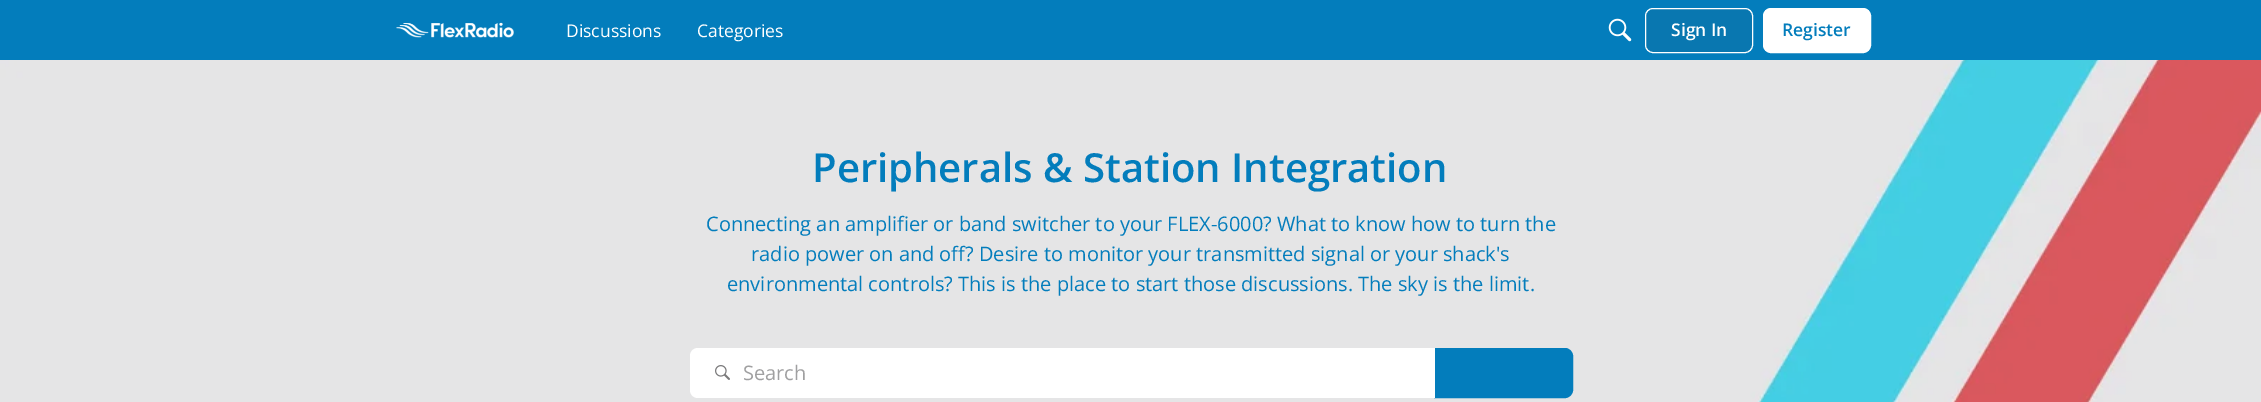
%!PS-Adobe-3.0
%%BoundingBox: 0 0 2261 402
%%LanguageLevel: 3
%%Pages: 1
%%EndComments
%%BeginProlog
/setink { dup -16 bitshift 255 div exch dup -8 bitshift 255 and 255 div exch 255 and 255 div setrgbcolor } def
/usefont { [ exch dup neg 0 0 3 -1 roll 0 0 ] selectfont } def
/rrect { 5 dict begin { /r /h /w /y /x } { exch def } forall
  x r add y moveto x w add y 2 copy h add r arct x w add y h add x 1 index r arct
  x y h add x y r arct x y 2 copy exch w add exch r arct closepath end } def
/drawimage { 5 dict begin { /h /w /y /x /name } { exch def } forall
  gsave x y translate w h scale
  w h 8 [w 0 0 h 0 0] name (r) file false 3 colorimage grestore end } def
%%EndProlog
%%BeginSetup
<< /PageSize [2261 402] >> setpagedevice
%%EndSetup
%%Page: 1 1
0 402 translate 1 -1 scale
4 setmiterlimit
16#FFFFFF setink
0 0 2261 402 rectfill
16#037DBC setink
0 0 2261 60 rectfill
(img1.raw) 396 22 118 16 drawimage
/OpenSans-Regular 17.5 usefont
16#FFFFFF setink
566 37 moveto (Discussions) show
697 37 moveto (Categories) show
(img2.raw) 1608 18 24 24 drawimage
16#0977B0 setink
1645.5 8.5 107 44 7.5 rrect gsave fill grestore
16#FFFFFF setink
stroke
/OpenSans-SemiBold 17.5 usefont
1671 36 moveto (Sign In) show
1763.5 8.5 107 44 7.5 rrect gsave fill grestore
stroke
16#037DBC setink
1782 36 moveto (Register) show
(img3.raw) 0 60 2261 342 drawimage
/OpenSans-SemiBold 40 usefont
812 182 moveto (Peripherals & Station Integration) show
/OpenSans-Regular 20 usefont
[
    [(Connecting an amplifier or band switcher to your FLEX-6000? What to know how to turn the) 706 231]
    [(radio power on and off? Desire to monitor your transmitted signal or your shack's) 751 261]
    [(environmental controls? This is the place to start those discussions. The sky is the limit.) 727 291]
] { aload pop moveto show } forall
1434.5 348.5 moveto 1565 348.5 lineto 1569 348.5 1572.5 352 1572.5 356 curveto 1572.5 390 lineto 1572.5 394 1569 397.5 1565 397.5 curveto 1434.5 397.5 lineto closepath gsave fill grestore
stroke
16#FFFFFF setink
698 348 moveto 1435 348 lineto 1435 398 lineto 698 398 lineto 693.5 398 690 394.5 690 390 curveto 690 356 lineto 690 351.5 693.5 348 698 348 curveto closepath fill
(img4.raw) 715 365 15 15 drawimage
16#A0A0A1 setink
743 380 moveto (Search) show
showpage
%%EOF
